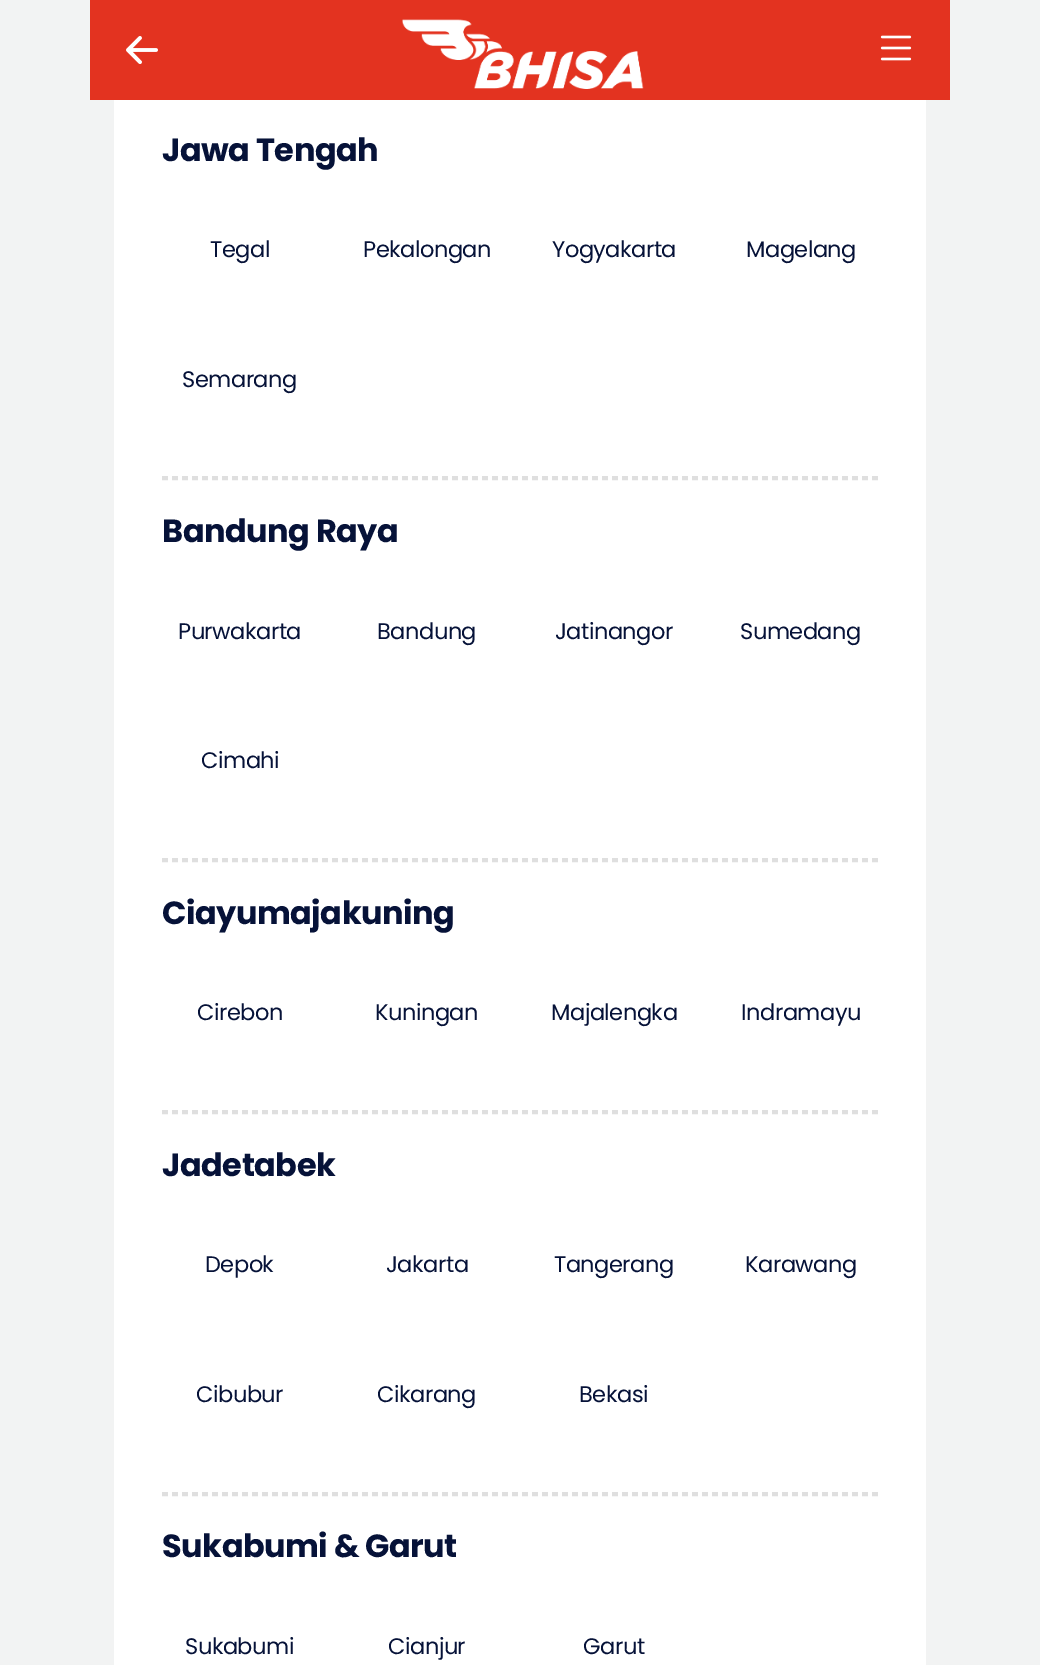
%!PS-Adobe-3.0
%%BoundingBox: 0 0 1040 1665
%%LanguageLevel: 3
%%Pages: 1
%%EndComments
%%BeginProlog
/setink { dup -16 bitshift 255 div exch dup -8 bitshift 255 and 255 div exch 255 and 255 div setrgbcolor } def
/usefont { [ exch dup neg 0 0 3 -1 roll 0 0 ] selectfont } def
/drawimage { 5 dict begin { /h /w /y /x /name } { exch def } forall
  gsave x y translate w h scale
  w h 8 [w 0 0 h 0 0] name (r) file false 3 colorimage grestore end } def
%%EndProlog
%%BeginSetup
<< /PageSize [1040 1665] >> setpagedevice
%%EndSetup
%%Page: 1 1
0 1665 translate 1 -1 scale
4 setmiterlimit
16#F2F3F3 setink
0 0 1040 1665 rectfill
16#E33320 setink
90 0 860 100 rectfill
(img1.raw) 126 36 32 28 drawimage
(img2.raw) 402 19 242 70 drawimage
(img3.raw) 880 35 32 26 drawimage
16#FFFFFF setink
114 100 812 1565 rectfill
/Poppins-Bold 32 usefont
16#061238 setink
162 161 moveto -0.5 0 (Jawa Tengah) ashow
/Poppins-Regular 22.5 usefont
210 257 moveto -0.5 0 (Tegal) ashow
363 257 moveto -0.5 0 (Pekalongan) ashow
552 257 moveto -0.5 0 (Yogyakarta) ashow
746 257 moveto -0.5 0 (Magelang) ashow
182 387 moveto -0.5 0 (Semarang) ashow
16#DFDFDF setink
2 setlinewidth
[6 4] 0 setdash
162 477 moveto 878 477 lineto stroke
876 476 2 4 rectfill
162 479 moveto 878 479 lineto stroke
/Poppins-Bold 32 usefont
16#061238 setink
162 542 moveto -0.5 0 (Bandung Raya) ashow
/Poppins-Regular 22.5 usefont
178 639 moveto -0.5 0 (Purwakarta) ashow
377 639 moveto -0.5 0 (Bandung) ashow
555 639 moveto -0.5 0 (Jatinangor) ashow
740 639 moveto -0.5 0 (Sumedang) ashow
201 768 moveto -0.5 0 (Cimahi) ashow
16#DFDFDF setink
162 859 moveto 878 859 lineto stroke
876 858 2 4 rectfill
162 861 moveto 878 861 lineto stroke
/Poppins-Bold 32 usefont
16#061238 setink
162 924 moveto -0.5 0 (Ciayumajakuning) ashow
/Poppins-Regular 22.5 usefont
197 1020 moveto -0.5 0 (Cirebon) ashow
375 1020 moveto -0.5 0 (Kuningan) ashow
551 1020 moveto -0.5 0 (Majalengka) ashow
741 1020 moveto -0.5 0 (Indramayu) ashow
16#DFDFDF setink
162 1111 moveto 878 1111 lineto stroke
876 1110 2 4 rectfill
162 1113 moveto 878 1113 lineto stroke
/Poppins-Bold 32 usefont
16#061238 setink
162 1176 moveto -0.5 0 (Jadetabek) ashow
/Poppins-Regular 22.5 usefont
205 1272 moveto -0.5 0 (Depok) ashow
386 1272 moveto -0.5 0 (Jakarta) ashow
554 1272 moveto -0.5 0 (Tangerang) ashow
745 1272 moveto -0.5 0 (Karawang) ashow
196 1402 moveto -0.5 0 (Cibubur) ashow
377 1402 moveto -0.5 0 (Cikarang) ashow
579 1402 moveto -0.5 0 (Bekasi) ashow
16#DFDFDF setink
162 1493 moveto 878 1493 lineto stroke
876 1492 2 4 rectfill
162 1495 moveto 878 1495 lineto stroke
/Poppins-Bold 32 usefont
16#061238 setink
162 1557 moveto -0.5 0 (Sukabumi & Garut) ashow
/Poppins-Regular 22.5 usefont
185 1654 moveto -0.5 0 (Sukabumi) ashow
388 1654 moveto -0.5 0 (Cianjur) ashow
583 1654 moveto -0.5 0 (Garut) ashow
showpage
%%EOF
